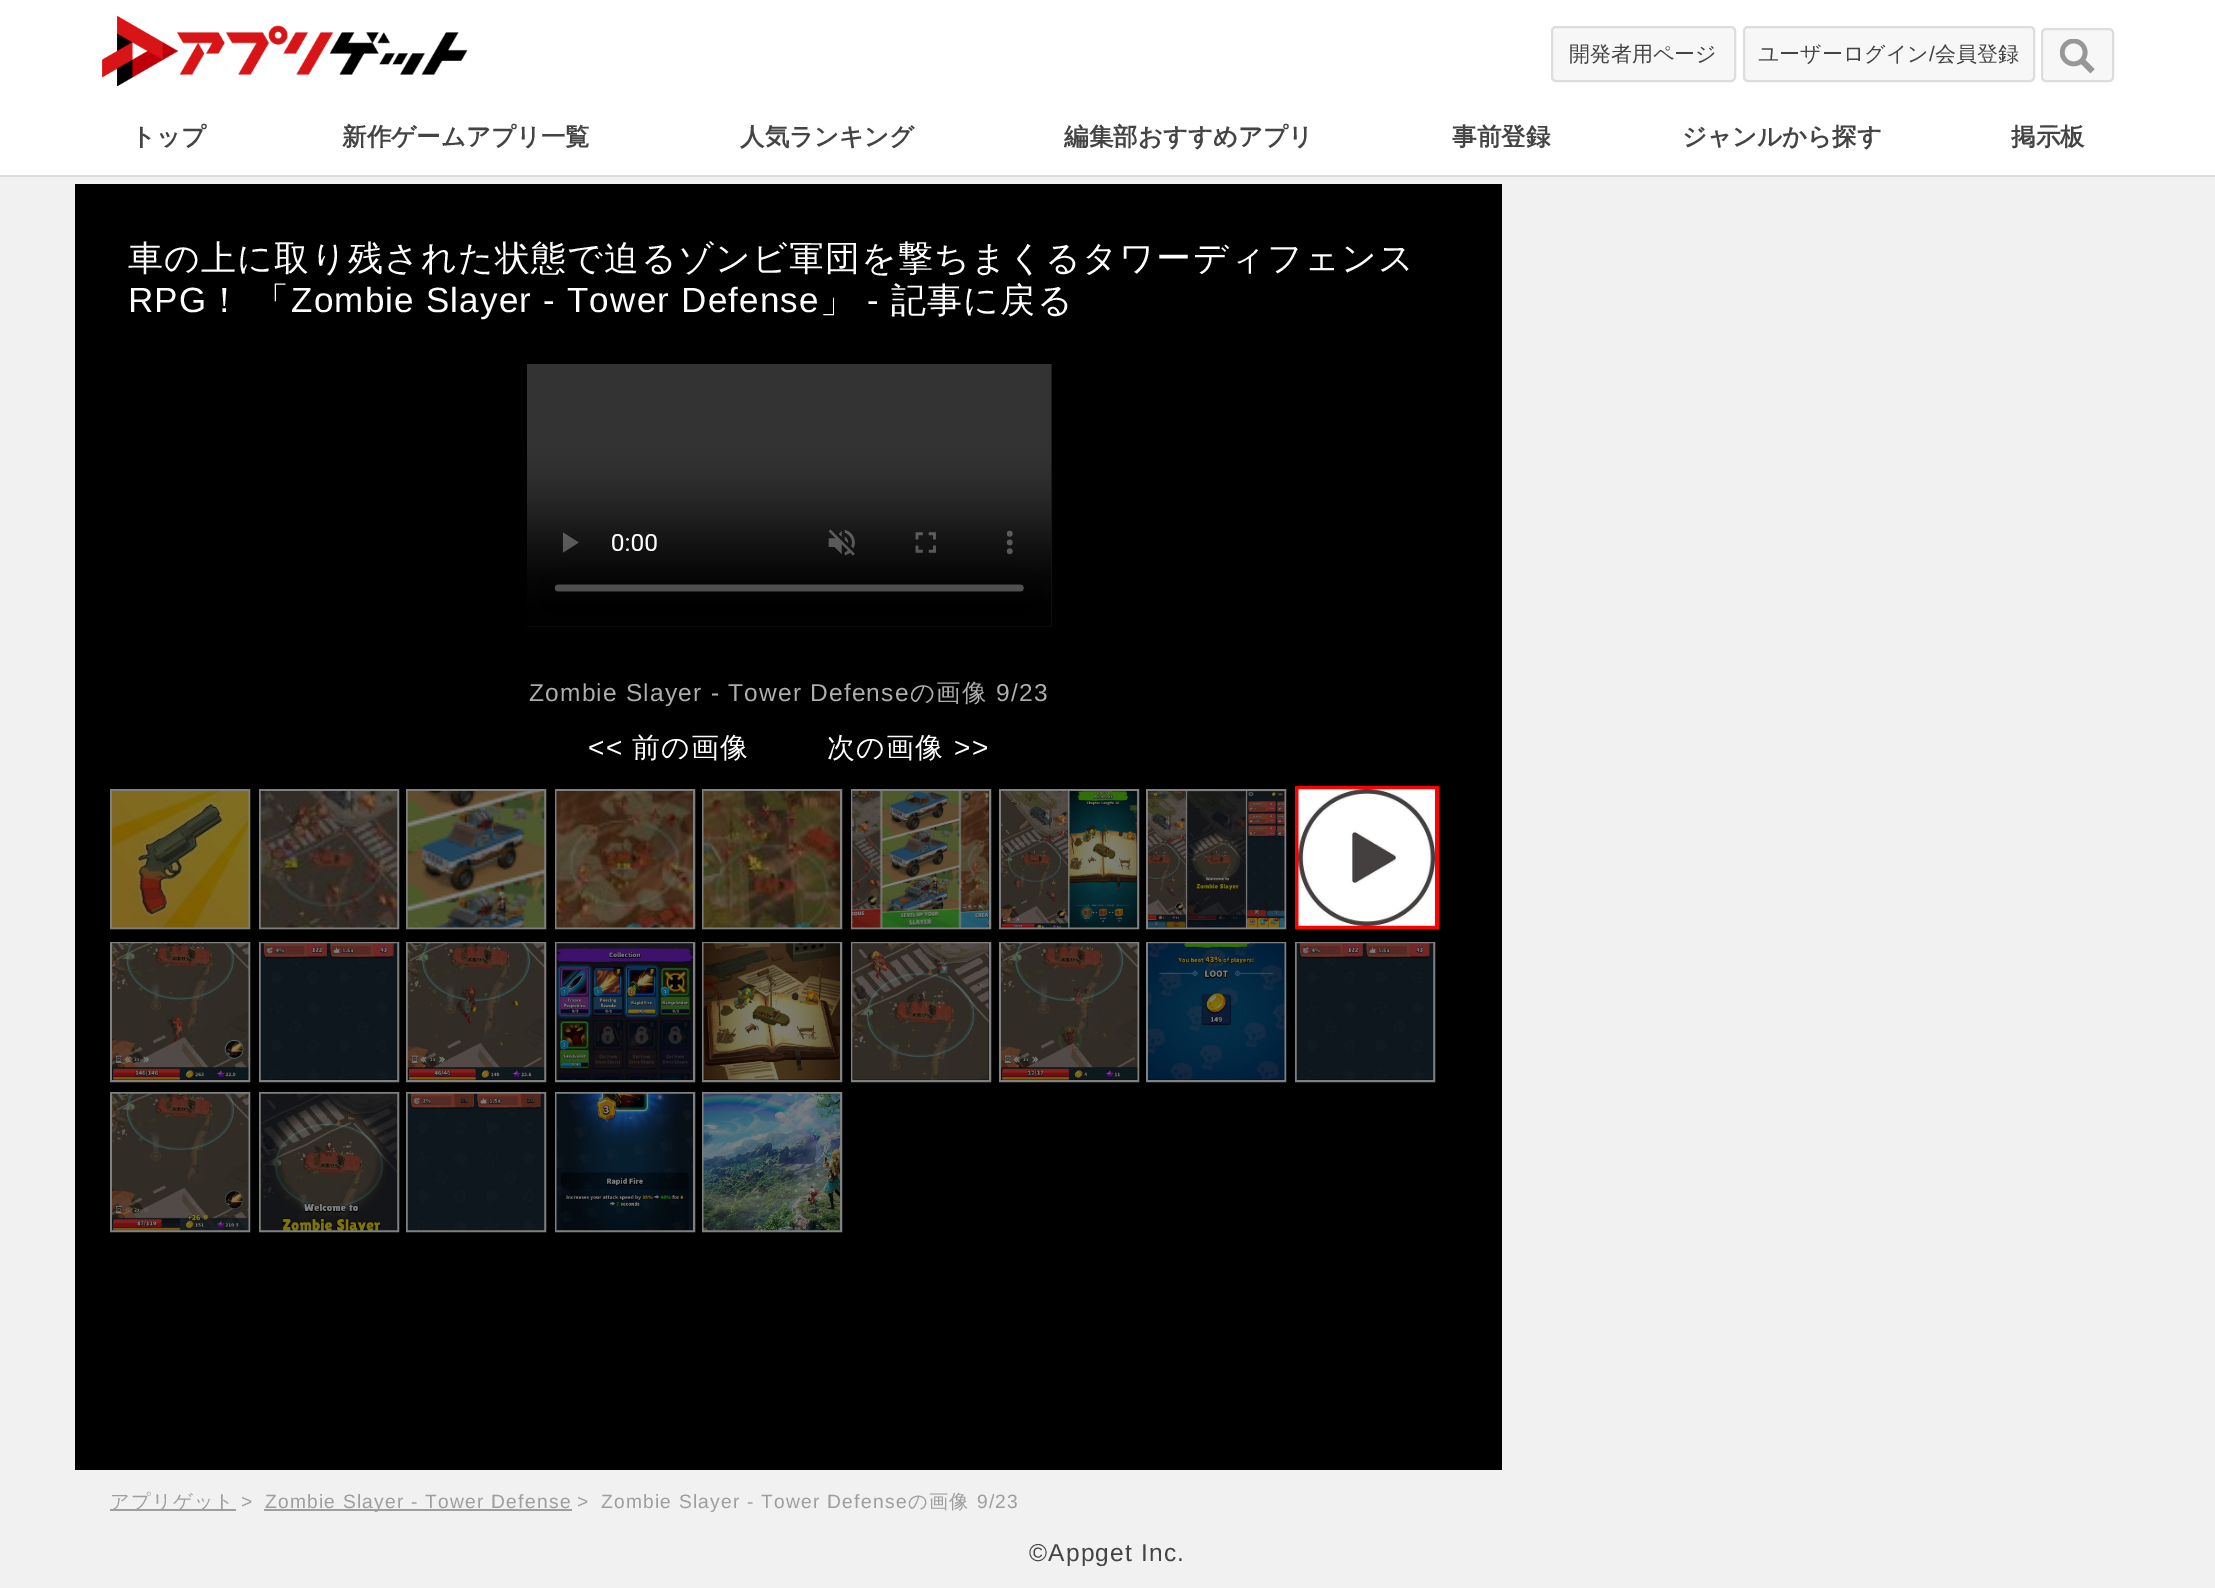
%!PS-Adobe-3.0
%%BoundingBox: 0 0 2215 1588
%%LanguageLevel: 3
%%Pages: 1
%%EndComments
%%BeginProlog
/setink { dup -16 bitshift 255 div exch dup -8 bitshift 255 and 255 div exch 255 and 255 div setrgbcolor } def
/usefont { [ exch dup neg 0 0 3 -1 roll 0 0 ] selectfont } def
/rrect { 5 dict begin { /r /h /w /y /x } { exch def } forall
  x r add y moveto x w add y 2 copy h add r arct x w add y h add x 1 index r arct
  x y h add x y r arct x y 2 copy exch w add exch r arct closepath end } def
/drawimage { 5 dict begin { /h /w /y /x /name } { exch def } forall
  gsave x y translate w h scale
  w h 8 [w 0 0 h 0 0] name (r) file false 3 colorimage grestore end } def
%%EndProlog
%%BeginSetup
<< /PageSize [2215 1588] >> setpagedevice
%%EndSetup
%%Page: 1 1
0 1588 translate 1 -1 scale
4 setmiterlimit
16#F1F1F1 setink
0 0 2215 1588 rectfill
16#FFFFFF setink
0 0 2215 175 rectfill
16#DDDDDD setink
0 175 2215 2 rectfill
(img1.raw) 102 16 366 70 drawimage
16#F7F7F7 setink
1552 27 183 54 4 rrect gsave fill grestore
16#DDDDDD setink
2 setlinewidth
stroke
/WenQuanYiZenHei-Medium 21 usefont
16#444444 setink
1569 61 moveto (開発者用ページ) show
16#F7F7F7 setink
1744 27 290 54 4 rrect gsave fill grestore
16#DDDDDD setink
stroke
16#444444 setink
1758 61 moveto (ユーザーログイン) show
/LiberationSans-Regular 21 usefont
1929 61 moveto (/) show
/WenQuanYiZenHei-Medium 21 usefont
1935 61 moveto (会員登録) show
16#F7F7F7 setink
2042 29 71 52 4 rrect gsave fill grestore
16#DDDDDD setink
stroke
(img2.raw) 2060 39 35 35 drawimage
/WenQuanYiZenHei-Bold 24.5 usefont
16#444444 setink
[
    [(トップ) 131 145]
    [(新作ゲームアプリ一覧) 342 145]
    [(人気ランキング) 740 145]
    [(編集部おすすめアプリ) 1064 145]
    [(事前登録) 1452 145]
    [(ジャンルから探す) 1682 145]
    [(掲示板) 2011 145]
] { aload pop moveto show } forall
16#000000 setink
75 184 1427 1286 rectfill
/WenQuanYiZenHei-Medium 35 usefont
16#FFFFFF setink
128 270 moveto 1.2 0 (車の上に取り残された状態で迫るゾンビ軍団を撃ちまくるタワーディフェンス) ashow
/LiberationSans-Regular 35 usefont
128 312 moveto 1.2 0 (RPG) ashow
/WenQuanYiZenHei-Medium 35 usefont
207 312 moveto 1.2 0 (！) ashow
254 312 moveto 1.2 0 (「) ashow
/LiberationSans-Regular 35 usefont
291 312 moveto 1.2 0 (Zombie Slayer - Tower Defense) ashow
/WenQuanYiZenHei-Medium 35 usefont
820 312 moveto 1.2 0 (」) ashow
/LiberationSans-Regular 35 usefont
867 312 moveto 1.2 0 (-) ashow
/WenQuanYiZenHei-Medium 35 usefont
891 312 moveto 1.2 0 (記事に戻る) ashow
(img3.raw) 527 364 525 263 drawimage
/LiberationSans-Regular 24.5 usefont
16#AEAEAE setink
529 701 moveto 1.2 0 (Zombie Slayer - Tower Defense) ashow
/WenQuanYiZenHei-Medium 24.5 usefont
910 701 moveto 1.2 0 (の画像) ashow
/LiberationSans-Regular 24.5 usefont
996 701 moveto 1.2 0 (9/23) ashow
/LiberationSans-Regular 28 usefont
16#FFFFFF setink
588 757 moveto 1.2 0 (<<) ashow
/WenQuanYiZenHei-Medium 28 usefont
632 757 moveto 1.2 0 (前の画像) ashow
827 757 moveto 1.2 0 (次の画像) ashow
/LiberationSans-Regular 28 usefont
954 757 moveto 1.2 0 (>>) ashow
16#808080 setink
111 790 138 138 rectstroke
260 790 138 138 rectstroke
407 790 138 138 rectstroke
556 790 138 138 rectstroke
703 790 138 138 rectstroke
852 790 138 138 rectstroke
1000 790 138 138 rectstroke
1147 790 138 138 rectstroke
16#FF0000 setink
4 setlinewidth
1297 788 140 139 rectstroke
(img4.raw) 112 791 137 137 drawimage
(img5.raw) 260 791 138 137 drawimage
(img6.raw) 407 791 138 137 drawimage
(img7.raw) 556 791 137 137 drawimage
(img8.raw) 703 791 137 137 drawimage
(img9.raw) 852 791 137 137 drawimage
(img10.raw) 1001 791 137 137 drawimage
(img11.raw) 1148 791 137 137 drawimage
(img12.raw) 1298 789 137 137 drawimage
16#808080 setink
2 setlinewidth
111 943 138 138 rectstroke
260 943 138 138 rectstroke
407 943 138 138 rectstroke
556 943 138 138 rectstroke
703 943 138 138 rectstroke
852 943 138 138 rectstroke
1000 943 138 138 rectstroke
1147 943 138 138 rectstroke
1296 943 138 138 rectstroke
(img13.raw) 112 943 137 137 drawimage
(img14.raw) 260 943 138 137 drawimage
(img15.raw) 407 943 138 137 drawimage
(img16.raw) 556 943 137 137 drawimage
(img17.raw) 703 943 137 137 drawimage
(img18.raw) 852 943 137 137 drawimage
(img19.raw) 1001 943 137 137 drawimage
(img20.raw) 1148 943 137 137 drawimage
(img14.raw) 1296 943 138 137 drawimage
111 1093 138 138 rectstroke
260 1093 138 138 rectstroke
407 1093 138 138 rectstroke
556 1093 138 138 rectstroke
703 1093 138 138 rectstroke
(img21.raw) 112 1093 137 138 drawimage
(img22.raw) 260 1093 138 138 drawimage
(img23.raw) 407 1093 138 138 drawimage
(img24.raw) 556 1093 137 138 drawimage
(img25.raw) 703 1093 137 138 drawimage
16#9E9E9E setink
110 1509 126 2 rectfill
/WenQuanYiZenHei-Medium 19.25 usefont
110 1508 moveto 1.2 0 (アプリゲット) ashow
/LiberationSans-Regular 19.25 usefont
241 1508 moveto 1.2 0 (>) ashow
264 1509 308 2 rectfill
265 1508 moveto 1.2 0 (Zombie Slayer - Tower Defense) ashow
577 1508 moveto 1.2 0 (>) ashow
601 1508 moveto 1.2 0 (Zombie Slayer - Tower Defense) ashow
/WenQuanYiZenHei-Medium 19.25 usefont
908 1508 moveto 1.2 0 (の画像) ashow
/LiberationSans-Regular 19.25 usefont
977 1508 moveto 1.2 0 (9/23) ashow
/LiberationSans-Regular 24.5 usefont
16#444444 setink
1029 1561 moveto 1.2 0 (©Appget Inc.) ashow
showpage
%%EOF
